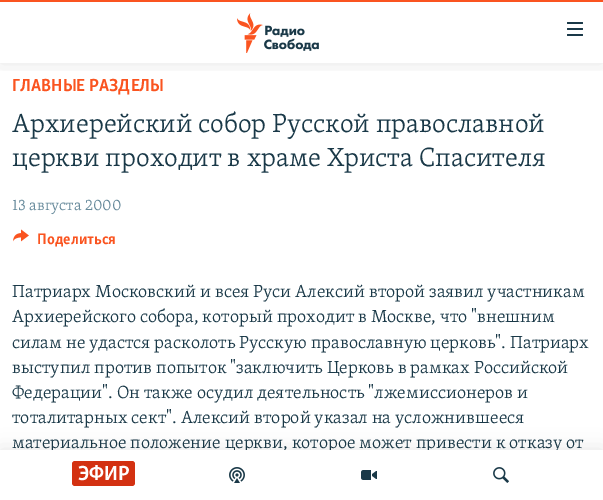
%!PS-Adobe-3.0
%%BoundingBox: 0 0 603 500
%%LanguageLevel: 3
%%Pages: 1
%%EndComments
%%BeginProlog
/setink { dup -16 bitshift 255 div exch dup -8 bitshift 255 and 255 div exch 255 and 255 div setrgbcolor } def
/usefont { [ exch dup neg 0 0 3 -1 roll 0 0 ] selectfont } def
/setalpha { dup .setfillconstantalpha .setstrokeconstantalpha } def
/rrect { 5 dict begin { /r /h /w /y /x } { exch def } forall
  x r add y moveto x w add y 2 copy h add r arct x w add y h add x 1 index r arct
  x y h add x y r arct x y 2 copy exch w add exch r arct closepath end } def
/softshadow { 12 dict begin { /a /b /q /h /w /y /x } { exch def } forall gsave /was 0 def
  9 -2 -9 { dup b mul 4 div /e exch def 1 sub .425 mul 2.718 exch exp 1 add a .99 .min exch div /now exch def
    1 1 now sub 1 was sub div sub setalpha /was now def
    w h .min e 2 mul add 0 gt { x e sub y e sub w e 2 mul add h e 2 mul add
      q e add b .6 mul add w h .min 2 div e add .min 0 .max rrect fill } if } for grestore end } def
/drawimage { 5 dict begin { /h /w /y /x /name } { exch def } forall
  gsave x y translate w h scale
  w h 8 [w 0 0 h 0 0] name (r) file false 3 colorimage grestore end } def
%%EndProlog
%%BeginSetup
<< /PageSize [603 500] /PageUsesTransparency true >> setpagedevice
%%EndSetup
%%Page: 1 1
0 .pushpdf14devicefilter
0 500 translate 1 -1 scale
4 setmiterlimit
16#FFFFFF setink
0 0 603 500 rectfill
/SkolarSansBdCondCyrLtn-Bold 18 usefont
16#FA5420 setink
12 91 moveto (ГЛАВНЫЕ РАЗДЕЛЫ) show
/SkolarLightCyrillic-Light 27 usefont
16#1A3948 setink
12 132 moveto (Архиерейский собор Русской православной) show
12 166 moveto (церкви проходит в храме Христа Спасителя) show
/SkolarLightCyrillic-Light 15.75 usefont
16#678A9B setink
12 210 moveto (13 августа 2000) show
(img1.raw) 13 229 16 13 drawimage
/SkolarSansBdCondCyrLtn-Bold 15.75 usefont
16#FA5420 setink
37 244 moveto (Поделиться) show
/SkolarLightCyrillic-Light 18 usefont
16#1A3948 setink
[
    [(Патриарх Московский и всея Руси Алексий второй заявил участникам) 12 297]
    [(Архиерейского собора, который проходит в Москве, что "внешним) 12 322]
    [(силам не удастся расколоть Русскую православную церковь". Патриарх) 12 348]
    [(выступил против попыток "заключить Церковь в рамках Российской) 12 373]
    [(Федерации". Он также осудил деятельность "лжемиссионеров и) 12 398]
    [(тоталитарных сект". Алексий второй указал на усложнившееся) 12 423]
    [(материальное положение церкви, которое может привести к отказу от) 12 448]
] { aload pop moveto show } forall
gsave
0 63 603 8 rectclip
16#000000 setink
0 0 603 63 0 10 0.1 softshadow
grestore
16#FA5420 setink
0 0 603 2 rectfill
(img2.raw) 237 13 82 40 drawimage
(img3.raw) 567 22 16 14 drawimage
16#000000 setink
0 450 603 50 0 10 0.1 softshadow
16#FFFFFF setink
0 450 603 50 rectfill
16#D33111 setink
72 461 63 25 3 rrect fill
/SkolarSansBdCondCyrLtn-Bold 21 usefont
16#FFFFFF setink
78 480 moveto (ЭФИР) show
(img4.raw) 229 467 16 16 drawimage
(img5.raw) 361 470 16 10 drawimage
(img6.raw) 493 467 16 16 drawimage
.poppdf14devicefilter showpage
%%EOF
